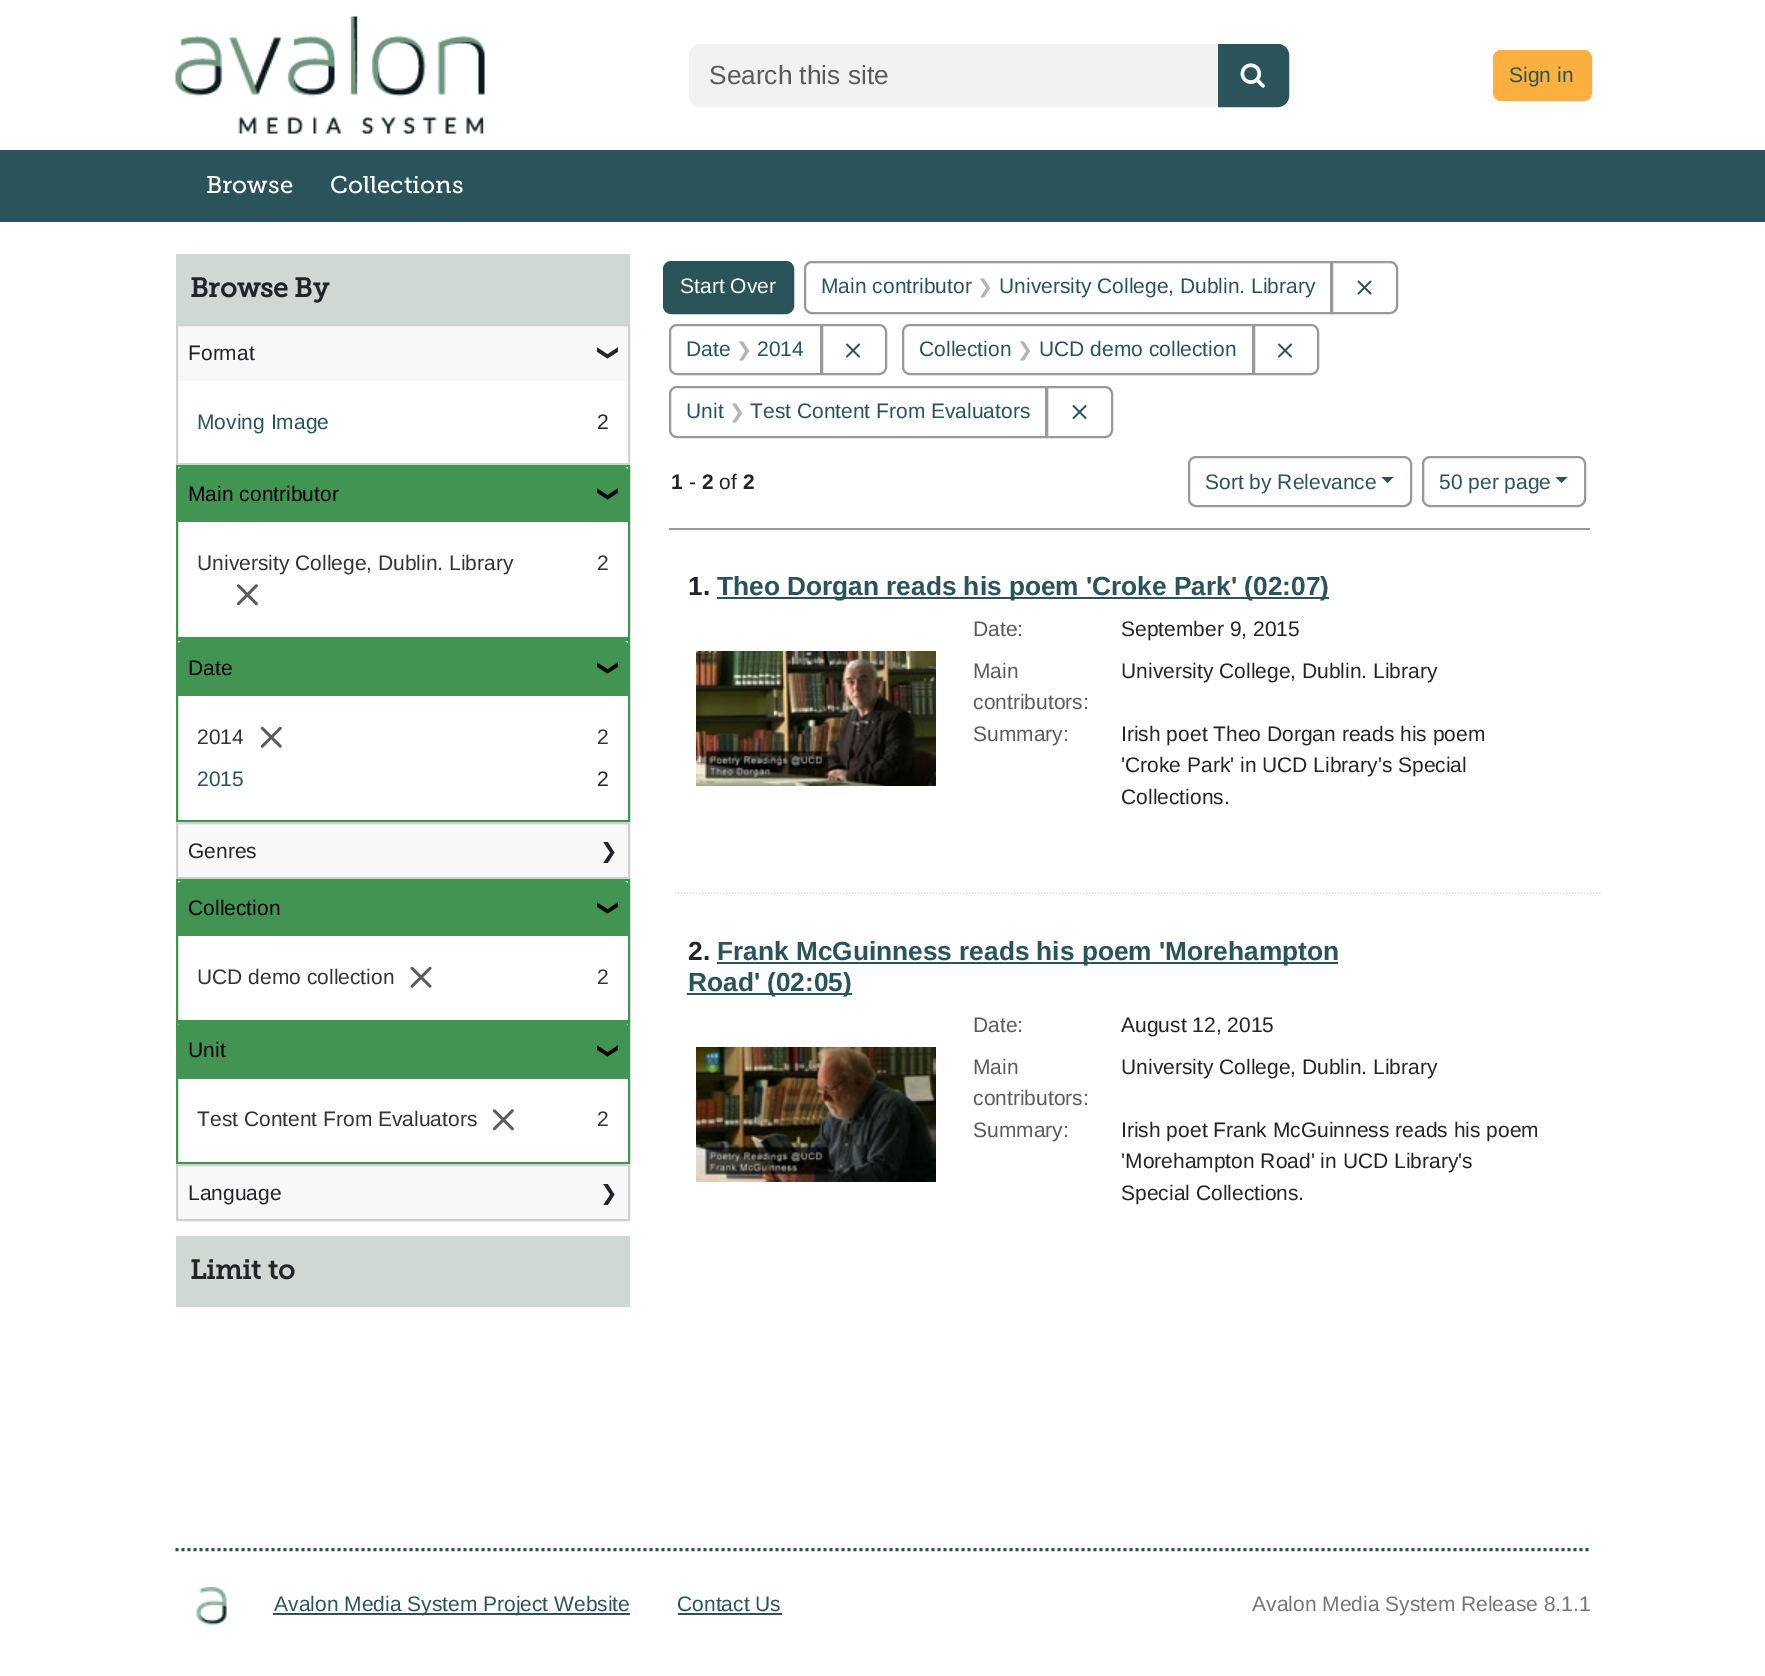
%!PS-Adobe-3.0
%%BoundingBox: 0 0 1765 1676
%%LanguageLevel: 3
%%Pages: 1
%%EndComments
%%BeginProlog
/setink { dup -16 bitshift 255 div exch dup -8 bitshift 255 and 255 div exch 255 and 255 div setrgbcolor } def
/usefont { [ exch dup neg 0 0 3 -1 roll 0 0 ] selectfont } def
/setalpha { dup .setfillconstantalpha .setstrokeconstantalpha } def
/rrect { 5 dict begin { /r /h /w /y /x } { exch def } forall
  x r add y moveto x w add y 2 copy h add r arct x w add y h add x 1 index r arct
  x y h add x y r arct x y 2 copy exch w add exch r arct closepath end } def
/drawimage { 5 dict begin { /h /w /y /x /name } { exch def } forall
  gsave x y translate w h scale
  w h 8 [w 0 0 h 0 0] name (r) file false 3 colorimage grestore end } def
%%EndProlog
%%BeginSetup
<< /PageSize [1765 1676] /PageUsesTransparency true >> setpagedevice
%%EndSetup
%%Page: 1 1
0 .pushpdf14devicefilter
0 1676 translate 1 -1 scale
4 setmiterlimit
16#FFFFFF setink
0 0 1765 1676 rectfill
(img1.raw) 175 16 310 118 drawimage
16#F2F2F2 setink
700 44 moveto 1220 44 lineto 1220 107 lineto 700 107 lineto 694 107 689 102 689 96 curveto 689 55 lineto 689 49 694 44 700 44 curveto closepath fill
/LiberationSans-Regular 26.25 usefont
16#595C5F setink
709 84 moveto (Search this site) show
16#2A5459 setink
1219 45 moveto 1278 45 lineto 1283.5 45 1288 49.5 1288 55 curveto 1288 96 lineto 1288 101.5 1283.5 106 1278 106 curveto 1219 106 lineto closepath gsave fill grestore
2 setlinewidth
stroke
(img2.raw) 1240 63 25 25 drawimage
16#FBB040 setink
1494 51 97 49 7 rrect gsave fill grestore
stroke
/LiberationSans-Regular 21 usefont
16#2A5459 setink
1509 82 moveto (Sign in) show
0 150 1765 72 rectfill
/MuseoSlab-Regular 24 usefont
16#FFFFFF setink
206 193 moveto (Browse) show
330 193 moveto (Collections) show
16#CFD8D3 setink
176 254 454 70 rectfill
/MuseoSlab-Bold 27 usefont
16#212529 setink
190 297 moveto (Browse By) show
16#D2D2D2 setink
177 325 452 139 rectstroke
0.03 setalpha
16#212529 setink
177 326 452 55 rectfill
/LiberationSans-Regular 21 usefont
1 setalpha
188 360 moveto (Format) show
/DejaVuSans-Regular 21 usefont
gsave 602 344 translate 90 rotate 0 0 moveto (❯) show grestore
/LiberationSans-Regular 21 usefont
16#2A5459 setink
197 429 moveto (Moving Image) show
16#212529 setink
597 429 moveto (2) show
16#429453 setink
177 466 452 172 rectstroke
183 467 moveto 623 467 lineto 626.5 467 629 469.5 629 473 curveto 629 522 lineto 177 522 lineto 177 473 lineto 177 469.5 179.5 467 183 467 curveto closepath fill
16#000000 setink
188 501 moveto (Main contributor) show
/DejaVuSans-Regular 21 usefont
gsave 602 485 translate 90 rotate 0 0 moveto (❯) show grestore
/LiberationSans-Regular 21 usefont
16#333333 setink
197 570 moveto (University College, Dublin. Library) show
(img3.raw) 236 584 22 22 drawimage
597 570 moveto (2) show
16#429453 setink
177 640 452 181 rectstroke
183 641 moveto 623 641 lineto 626.5 641 629 643.5 629 647 curveto 629 696 lineto 177 696 lineto 177 647 lineto 177 643.5 179.5 641 183 641 curveto closepath fill
16#000000 setink
188 675 moveto (Date) show
/DejaVuSans-Regular 21 usefont
gsave 602 659 translate 90 rotate 0 0 moveto (❯) show grestore
/LiberationSans-Regular 21 usefont
16#333333 setink
197 744 moveto (2014) show
(img4.raw) 260 726 22 22 drawimage
597 744 moveto (2) show
16#2A5459 setink
197 786 moveto (2015) show
16#212529 setink
597 786 moveto (2) show
16#D2D2D2 setink
177 823 452 55 rectstroke
0.03 setalpha
16#212529 setink
177 824 452 54 rectfill
1 setalpha
188 858 moveto (Genres) show
/DejaVuSans-Regular 21 usefont
600 858 moveto (❯) show
16#429453 setink
177 880 452 141 rectstroke
183 881 moveto 623 881 lineto 626.5 881 629 883.5 629 887 curveto 629 936 lineto 177 936 lineto 177 887 lineto 177 883.5 179.5 881 183 881 curveto closepath fill
/LiberationSans-Regular 21 usefont
16#000000 setink
188 915 moveto (Collection) show
/DejaVuSans-Regular 21 usefont
gsave 602 899 translate 90 rotate 0 0 moveto (❯) show grestore
/LiberationSans-Regular 21 usefont
16#333333 setink
197 984 moveto (UCD demo collection) show
(img5.raw) 410 966 22 22 drawimage
597 984 moveto (2) show
16#429453 setink
177 1023 452 140 rectstroke
183 1023 moveto 623 1023 lineto 626.5 1023 629 1025.5 629 1029 curveto 629 1079 lineto 177 1079 lineto 177 1029 lineto 177 1025.5 179.5 1023 183 1023 curveto closepath fill
16#000000 setink
188 1057 moveto (Unit) show
/DejaVuSans-Regular 21 usefont
gsave 602 1042 translate 90 rotate 0 0 moveto (❯) show grestore
/LiberationSans-Regular 21 usefont
16#333333 setink
197 1126 moveto (Test Content From Evaluators) show
(img6.raw) 492 1109 22 22 drawimage
597 1126 moveto (2) show
16#D2D2D2 setink
177 1165 452 55 rectstroke
0.03 setalpha
16#212529 setink
177 1166 452 54 rectfill
1 setalpha
188 1200 moveto (Language) show
/DejaVuSans-Regular 21 usefont
600 1200 moveto (❯) show
16#CFD8D3 setink
176 1236 454 71 rectfill
/MuseoSlab-Bold 27 usefont
16#212529 setink
190 1279 moveto (Limit to) show
16#2A5459 setink
664 262 129 51 7 rrect gsave fill grestore
stroke
/LiberationSans-Regular 21 usefont
16#FFFFFF setink
680 293 moveto (Start Over) show
16#999999 setink
812 262 moveto 1331 262 lineto 1331 313 lineto 812 313 lineto 808 313 805 310 805 306 curveto 805 269 lineto 805 265 808 262 812 262 curveto closepath stroke
16#2A5459 setink
821 293 moveto (Main contributor) show
/DejaVuSans-Regular 19 usefont
16#ADB5BD setink
977 293 moveto (❯) show
/LiberationSans-Regular 21 usefont
16#2A5459 setink
999 293 moveto (University College, Dublin. Library) show
16#FFFFFF setink
1332 262 moveto 1390 262 lineto 1394 262 1397 265 1397 269 curveto 1397 306 lineto 1397 310 1394 313 1390 313 curveto 1332 313 lineto closepath gsave fill grestore
16#999999 setink
stroke
(img7.raw) 1357 280 15 15 drawimage
677 325 moveto 821 325 lineto 821 374 lineto 677 374 lineto 673 374 670 371 670 367 curveto 670 332 lineto 670 328 673 325 677 325 curveto closepath stroke
16#2A5459 setink
686 356 moveto (Date) show
/DejaVuSans-Regular 19 usefont
16#ADB5BD setink
736 356 moveto (❯) show
/LiberationSans-Regular 21 usefont
16#2A5459 setink
757 356 moveto (2014) show
16#FFFFFF setink
822 325 moveto 879 325 lineto 883 325 886 328 886 332 curveto 886 367 lineto 886 371 883 374 879 374 curveto 822 374 lineto closepath gsave fill grestore
16#999999 setink
stroke
(img8.raw) 846 343 14 15 drawimage
910 325 moveto 1253 325 lineto 1253 374 lineto 910 374 lineto 906 374 903 371 903 367 curveto 903 332 lineto 903 328 906 325 910 325 curveto closepath stroke
16#2A5459 setink
919 356 moveto (Collection) show
/DejaVuSans-Regular 19 usefont
16#ADB5BD setink
1017 356 moveto (❯) show
/LiberationSans-Regular 21 usefont
16#2A5459 setink
1039 356 moveto (UCD demo collection) show
16#FFFFFF setink
1254 325 moveto 1311 325 lineto 1315 325 1318 328 1318 332 curveto 1318 367 lineto 1318 371 1315 374 1311 374 curveto 1254 374 lineto closepath gsave fill grestore
16#999999 setink
stroke
(img8.raw) 1278 343 14 15 drawimage
677 387 moveto 1046 387 lineto 1046 437 lineto 677 437 lineto 673 437 670 434 670 430 curveto 670 394 lineto 670 390 673 387 677 387 curveto closepath stroke
16#2A5459 setink
686 418 moveto (Unit) show
/DejaVuSans-Regular 19 usefont
16#ADB5BD setink
729 418 moveto (❯) show
/LiberationSans-Regular 21 usefont
16#2A5459 setink
750 418 moveto (Test Content From Evaluators) show
16#FFFFFF setink
1047 387 moveto 1105 387 lineto 1109 387 1112 390 1112 394 curveto 1112 430 lineto 1112 434 1109 437 1105 437 curveto 1047 437 lineto closepath gsave fill grestore
16#999999 setink
stroke
(img9.raw) 1072 405 15 14 drawimage
669 528 921 2 rectfill
/LiberationSans-Bold 21 usefont
16#212529 setink
671 489 moveto (1) show
/LiberationSans-Regular 21 usefont
689 489 moveto (-) show
/LiberationSans-Bold 21 usefont
702 489 moveto (2) show
/LiberationSans-Regular 21 usefont
719 489 moveto (of) show
/LiberationSans-Bold 21 usefont
743 489 moveto (2) show
16#999999 setink
1189 457 222 49 7 rrect stroke
/LiberationSans-Regular 21 usefont
16#2A5459 setink
1205 489 moveto (Sort by Relevance) show
1381.5 477 moveto 1393.5 477 lineto 1387.5 483 lineto closepath fill
16#999999 setink
1423 457 162 49 7 rrect stroke
16#2A5459 setink
1439 489 moveto (50 per page) show
1555.5 477 moveto 1567.5 477 lineto 1561.5 483 lineto closepath fill
16#DEE2E6 setink
1.5 setlinewidth
[1.5 1.5] 0 setdash
675 893 moveto 1602 893 lineto stroke
/LiberationSans-Bold 26.25 usefont
16#212529 setink
688 595 moveto (1.) show
16#2A5459 setink
717 597 612 2 rectfill
717 595 moveto (Theo Dorgan reads his poem 'Croke Park' \(02:07\)) show
(img10.raw) 696 651 240 135 drawimage
/LiberationSans-Regular 21 usefont
16#595C5F setink
973 636 moveto (Date:) show
16#212529 setink
1121 636 moveto (September 9, 2015) show
16#595C5F setink
973 678 moveto (Main) show
973 709 moveto (contributors:) show
16#212529 setink
1121 678 moveto (University College, Dublin. Library) show
16#595C5F setink
973 741 moveto (Summary:) show
16#212529 setink
[
    [(Irish poet Theo Dorgan reads his poem) 1121 741]
    [('Croke Park' in UCD Library's Special) 1121 772]
    [(Collections.) 1121 804]
] { aload pop moveto show } forall
/LiberationSans-Bold 26.25 usefont
688 960 moveto (2.) show
16#2A5459 setink
717 962 621 2 rectfill
717 960 moveto (Frank McGuinness reads his poem 'Morehampton) show
687 993 165 2 rectfill
688 991 moveto (Road' \(02:05\)) show
(img11.raw) 696 1047 240 135 drawimage
/LiberationSans-Regular 21 usefont
16#595C5F setink
973 1032 moveto (Date:) show
16#212529 setink
1121 1032 moveto (August 12, 2015) show
16#595C5F setink
973 1074 moveto (Main) show
973 1105 moveto (contributors:) show
16#212529 setink
1121 1074 moveto (University College, Dublin. Library) show
16#595C5F setink
973 1137 moveto (Summary:) show
16#212529 setink
[
    [(Irish poet Frank McGuinness reads his poem) 1121 1137]
    [('Morehampton Road' in UCD Library's) 1121 1168]
    [(Special Collections.) 1121 1200]
] { aload pop moveto show } forall
16#2A5459 setink
3 setlinewidth
[3 3] 0 setdash
175.5 1549.5 moveto 1591.5 1549.5 lineto stroke
(img12.raw) 196 1587 31 38 drawimage
273 1613 357 2 rectfill
274 1611 moveto (Avalon Media System Project Website) show
677 1611 moveto (Contact Us) show
678 1613 104 2 rectfill
16#767676 setink
1252 1611 moveto (Avalon Media System Release 8.1.1) show
.poppdf14devicefilter showpage
%%EOF
